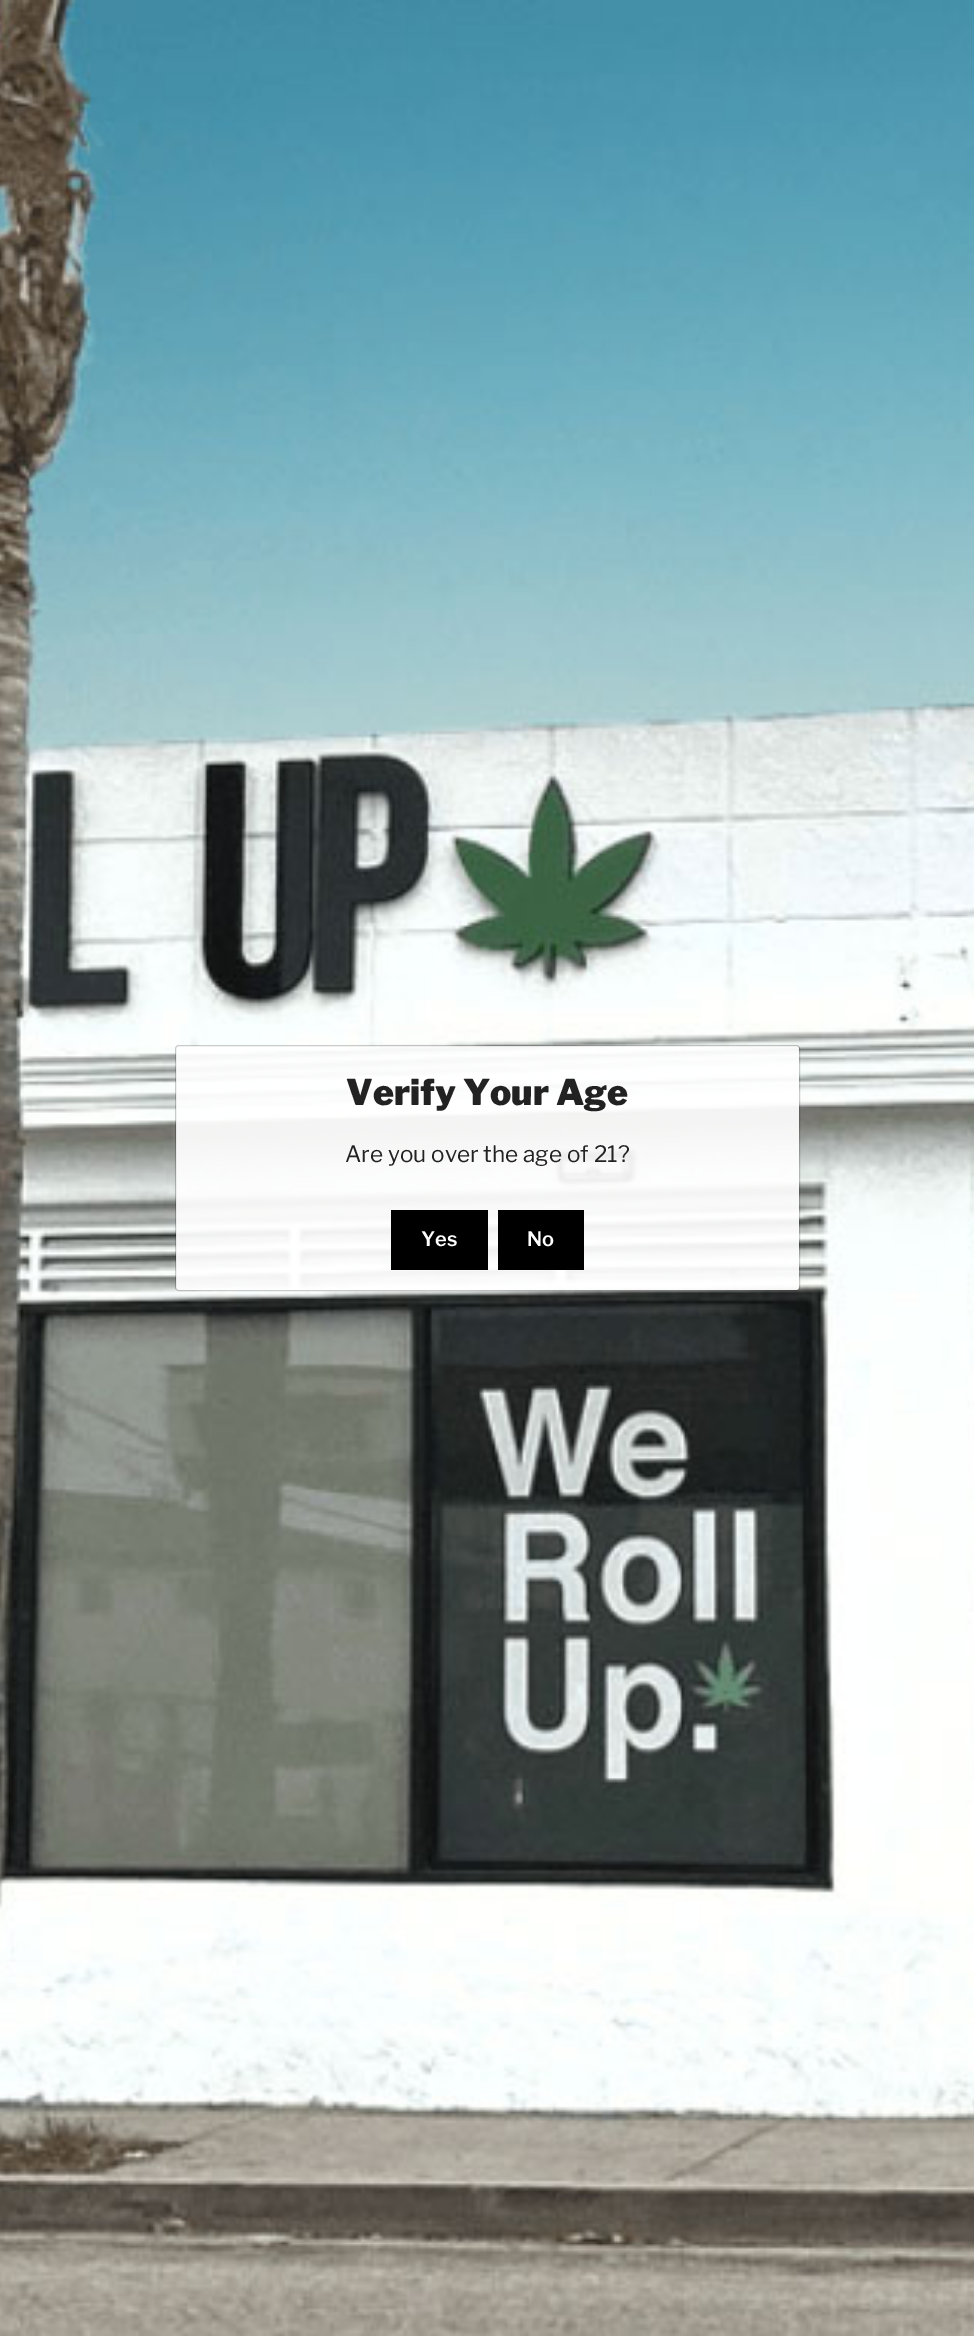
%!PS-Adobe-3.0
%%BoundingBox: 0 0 974 2336
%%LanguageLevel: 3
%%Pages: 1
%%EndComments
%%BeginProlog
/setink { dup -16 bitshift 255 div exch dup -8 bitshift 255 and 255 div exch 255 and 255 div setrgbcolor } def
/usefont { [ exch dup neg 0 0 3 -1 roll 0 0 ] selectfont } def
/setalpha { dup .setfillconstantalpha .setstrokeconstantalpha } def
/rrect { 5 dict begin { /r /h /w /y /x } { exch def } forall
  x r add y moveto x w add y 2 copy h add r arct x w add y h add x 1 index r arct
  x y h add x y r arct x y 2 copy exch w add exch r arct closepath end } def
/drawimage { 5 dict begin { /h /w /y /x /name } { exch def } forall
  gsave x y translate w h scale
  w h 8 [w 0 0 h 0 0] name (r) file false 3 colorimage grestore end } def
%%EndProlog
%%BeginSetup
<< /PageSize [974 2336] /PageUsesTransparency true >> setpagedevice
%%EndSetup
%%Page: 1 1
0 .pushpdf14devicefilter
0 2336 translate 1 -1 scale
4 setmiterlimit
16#FFFFFF setink
0 0 974 2336 rectfill
(img1.raw) 0 0 974 2336 drawimage
0.92 setalpha
176 1046 623 244 2.5 rrect fill
0.2 setalpha
16#000000 setink
175.5 1045.5 624 245 3.5 rrect stroke
/LibreFranklin-Black 35.5 usefont
1 setalpha
16#222222 setink
346 1105 moveto (Verify Your Age) show
/LibreFranklin-Regular 22.5 usefont
345 1162 moveto (Are you over the age of 21?) show
16#000000 setink
391 1210 97 60 rectfill
/LibreFranklin-SemiBold 20 usefont
16#FFFFFF setink
421 1246 moveto (Yes) show
16#000000 setink
498 1210 86 60 rectfill
16#FFFFFF setink
527 1246 moveto (No) show
.poppdf14devicefilter showpage
%%EOF
